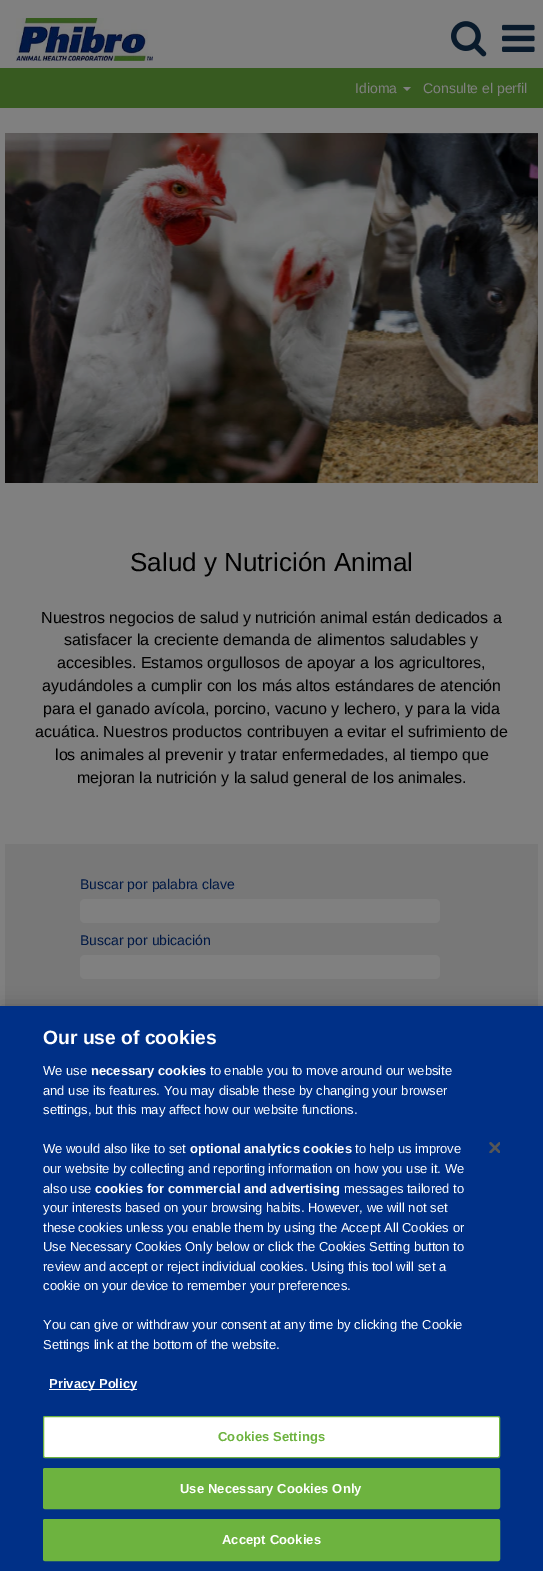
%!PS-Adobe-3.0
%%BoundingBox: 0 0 543 1571
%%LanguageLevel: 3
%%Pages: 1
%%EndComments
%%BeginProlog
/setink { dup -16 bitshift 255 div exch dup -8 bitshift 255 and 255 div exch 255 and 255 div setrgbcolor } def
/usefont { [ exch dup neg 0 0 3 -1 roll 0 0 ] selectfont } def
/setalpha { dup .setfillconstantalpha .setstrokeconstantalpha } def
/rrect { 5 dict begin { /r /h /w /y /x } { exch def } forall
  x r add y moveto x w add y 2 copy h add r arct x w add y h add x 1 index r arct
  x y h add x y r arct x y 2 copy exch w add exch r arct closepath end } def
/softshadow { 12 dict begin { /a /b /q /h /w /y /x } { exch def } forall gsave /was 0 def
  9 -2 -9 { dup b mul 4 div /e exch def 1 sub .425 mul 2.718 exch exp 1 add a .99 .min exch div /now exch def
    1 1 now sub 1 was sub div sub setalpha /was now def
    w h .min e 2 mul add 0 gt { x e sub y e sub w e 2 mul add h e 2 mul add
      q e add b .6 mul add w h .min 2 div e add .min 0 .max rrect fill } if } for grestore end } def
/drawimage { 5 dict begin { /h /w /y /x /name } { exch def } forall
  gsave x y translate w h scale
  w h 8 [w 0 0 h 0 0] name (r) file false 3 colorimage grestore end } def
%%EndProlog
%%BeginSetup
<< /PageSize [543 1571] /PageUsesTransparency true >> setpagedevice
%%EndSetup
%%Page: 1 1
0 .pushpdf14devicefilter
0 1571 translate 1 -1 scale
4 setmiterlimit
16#808080 setink
0 0 543 1571 rectfill
(img1.raw) 16 18 137 43 drawimage
(img2.raw) 451 21 36 36 drawimage
(img3.raw) 502 24 33 28 drawimage
16#375A20 setink
0 68 543 40 rectfill
/LiberationSans-Regular 14 usefont
16#808080 setink
355 93 moveto (Idioma) show
403 87 moveto 411 87 lineto 407 91 lineto closepath fill
423 93 moveto (Consulte el perfil) show
(img4.raw) 5 133 533 350 drawimage
/LiberationSans-Regular 26 usefont
16#000000 setink
130 571 moveto (Salud y Nutrición Animal) show
/LiberationSans-Regular 16 usefont
[
    [(Nuestros negocios de salud y nutrición animal están dedicados a) 41 623]
    [(satisfacer la creciente demanda de alimentos saludables y) 64 645]
    [(accesibles. Estamos orgullosos de apoyar a los agricultores,) 57 668]
    [(ayudándoles a cumplir con los más altos estándares de atención) 42 691]
    [(para el ganado avícola, porcino, vacuno y lechero, y para la vida) 43 714]
    [(acuática. Nuestros productos contribuyen a evitar el sufrimiento de) 35 737]
    [(los animales al prevenir y tratar enfermedades, al tiempo que) 55 760]
    [(mejoran la nutrición y la salud general de los animales.) 77 783]
] { aload pop moveto show } forall
16#787878 setink
5 844 533 162 rectfill
/LiberationSans-Regular 14 usefont
16#001844 setink
80 889 moveto (Buscar por palabra clave) show
16#808080 setink
80 899 360 24 5 rrect fill
16#001844 setink
80 945 moveto (Buscar por ubicación) show
16#808080 setink
80 955 360 24 5 rrect fill
16#000000 setink
0 1006 543 565 0 9 0.2 softshadow
16#003087 setink
0 1006 543 565 rectfill
/LiberationSans-Bold 19.25 usefont
16#FFFFFF setink
43 1044 moveto (Our use of cookies) show
/LiberationSans-Regular 13 usefont
43 1075 moveto (We use) show
/LiberationSans-Bold 13 usefont
91 1075 moveto (necessary cookies) show
/LiberationSans-Regular 13 usefont
[
    [(to enable you to move around our website) 210 1075]
    [(and use its features. You may disable these by changing your browser) 43 1095]
    [(settings, but this may affect how our website functions.) 43 1114]
    [(We would also like to set) 43 1153]
] { aload pop moveto show } forall
/LiberationSans-Bold 13 usefont
190 1153 moveto (optional analytics cookies) show
/LiberationSans-Regular 13 usefont
[
    [(to help us improve) 355 1153]
    [(our website by collecting and reporting information on how you use it. We) 43 1173]
    [(also use) 43 1193]
] { aload pop moveto show } forall
/LiberationSans-Bold 13 usefont
95 1193 moveto (cookies for commercial and advertising) show
/LiberationSans-Regular 13 usefont
[
    [(messages tailored to) 344 1193]
    [(your interests based on your browsing habits. However, we will not set) 43 1212]
    [(these cookies unless you enable them by using the Accept All Cookies or) 43 1232]
    [(Use Necessary Cookies Only below or click the Cookies Setting button to) 43 1251]
    [(review and accept or reject individual cookies. Using this tool will set a) 43 1271]
    [(cookie on your device to remember your preferences.) 43 1290]
    [(You can give or withdraw your consent at any time by clicking the Cookie) 43 1329]
    [(Settings link at the bottom of the website.) 43 1349]
] { aload pop moveto show } forall
49 1389 88 1 rectfill
/LiberationSans-Bold 13 usefont
49 1388 moveto (Privacy Policy) show
(img5.raw) 489 1142 11 11 drawimage
43.5 1416.5 456 41 1.5 rrect gsave fill grestore
16#6DB33F setink
stroke
218 1441 moveto 0.1 0 (Cookies Settings) ashow
43.5 1468.5 456 40 1.5 rrect gsave fill grestore
stroke
16#FFFFFF setink
180 1493 moveto 0.1 0 (Use Necessary Cookies Only) ashow
16#6DB33F setink
43.5 1519.5 456 41 1.5 rrect gsave fill grestore
stroke
16#FFFFFF setink
222 1544 moveto 0.1 0 (Accept Cookies) ashow
.poppdf14devicefilter showpage
%%EOF
